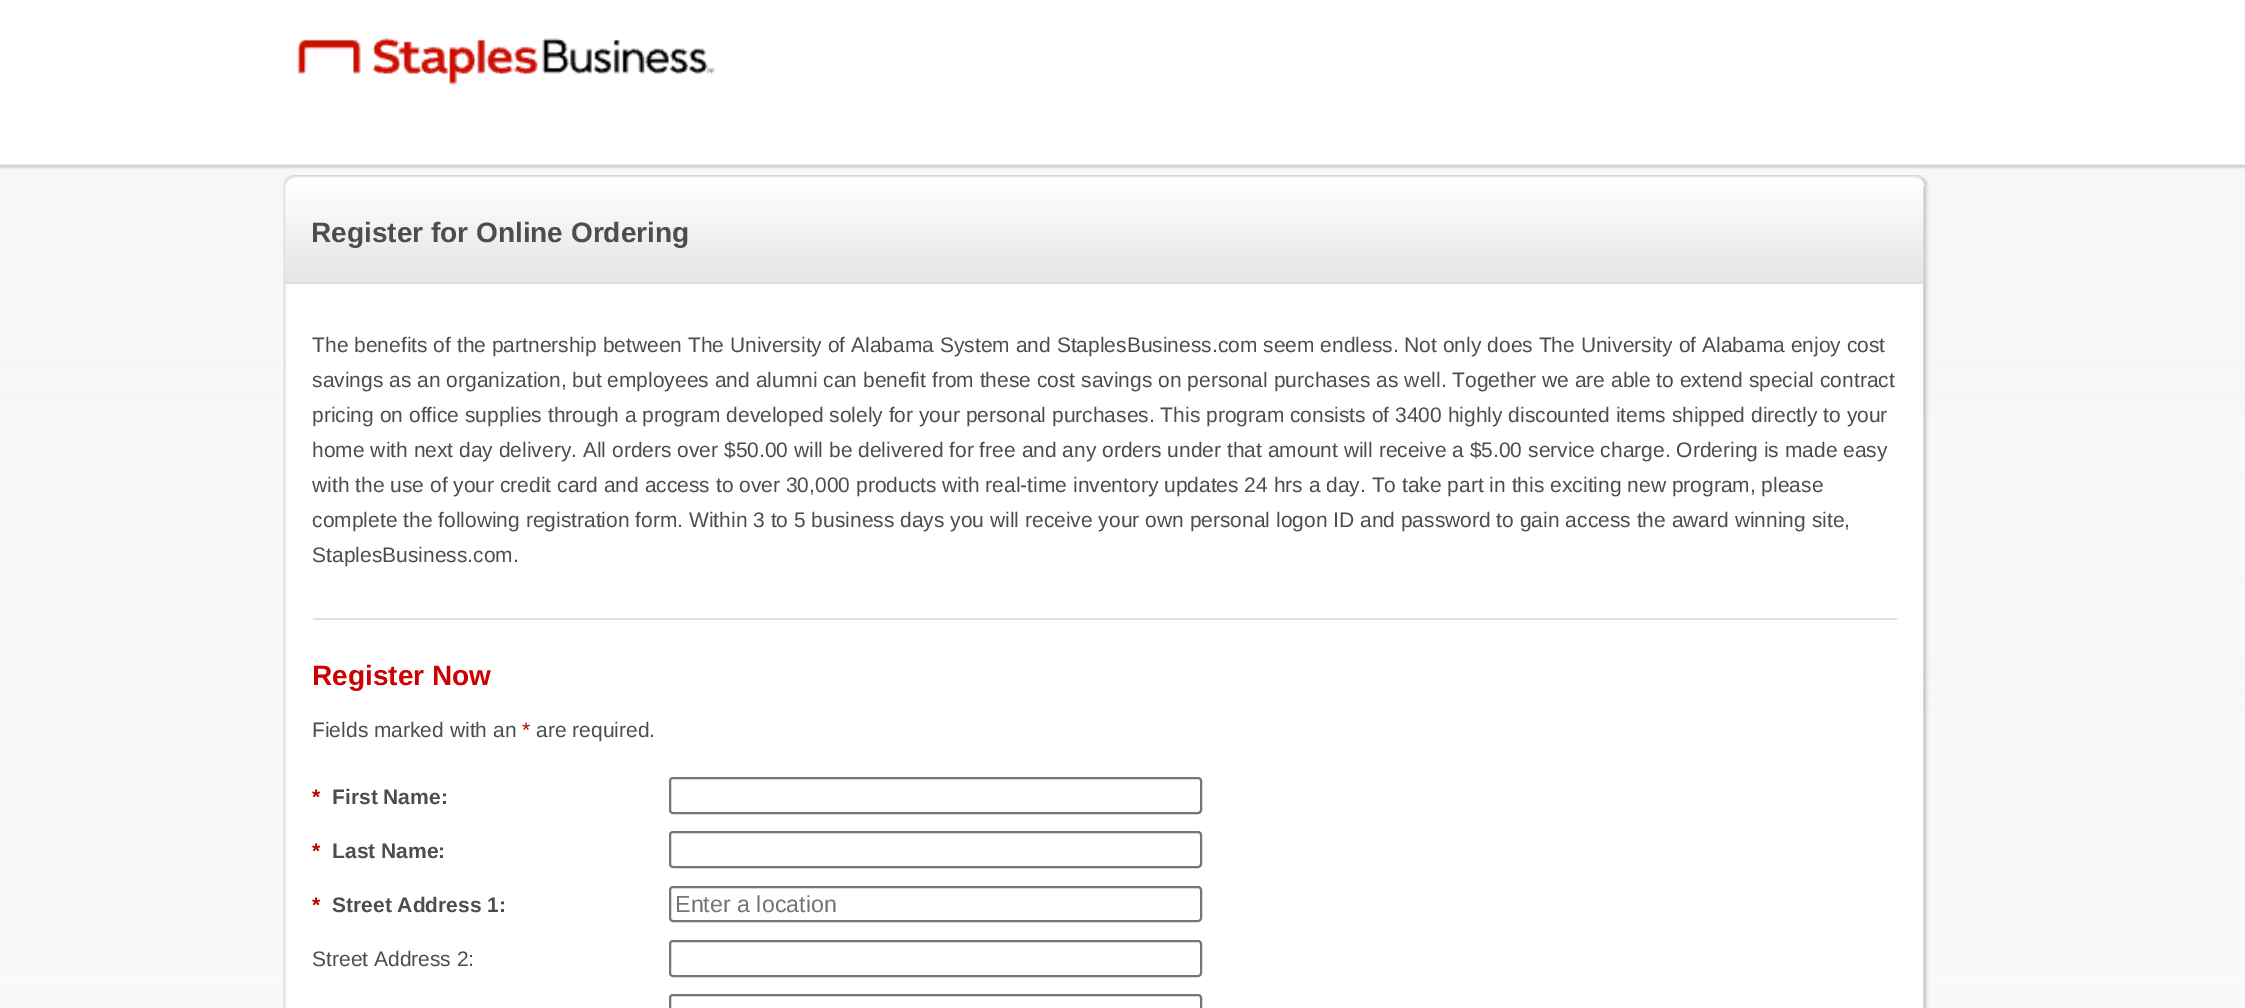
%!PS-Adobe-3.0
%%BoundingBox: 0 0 2245 1008
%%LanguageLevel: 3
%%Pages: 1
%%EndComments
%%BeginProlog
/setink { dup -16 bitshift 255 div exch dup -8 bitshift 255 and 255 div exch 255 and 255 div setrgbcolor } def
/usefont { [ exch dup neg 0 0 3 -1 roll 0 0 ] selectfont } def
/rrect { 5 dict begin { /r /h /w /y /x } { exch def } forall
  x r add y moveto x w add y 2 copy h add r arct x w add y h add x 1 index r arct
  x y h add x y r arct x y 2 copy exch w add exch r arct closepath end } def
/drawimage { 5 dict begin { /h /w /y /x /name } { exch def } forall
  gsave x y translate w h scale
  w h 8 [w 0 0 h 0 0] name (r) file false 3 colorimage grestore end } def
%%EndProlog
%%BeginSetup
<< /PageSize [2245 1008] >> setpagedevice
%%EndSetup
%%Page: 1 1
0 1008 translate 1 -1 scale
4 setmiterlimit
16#FFFFFF setink
0 0 2245 1008 rectfill
(img1.raw) 0 164 2245 844 drawimage
(img2.raw) 297 38 419 47 drawimage
(img4.raw) 283 185 1646 823 drawimage
16#F7F7F7 setink
284 185 1645 1 rectfill
(img3.raw) 283 175 1646 11 drawimage
16#E5E7E8 setink
285 186 1638 96 rectfill
(img5.raw) 285 186 1639 87 drawimage
16#DEDEDE setink
285 282 1638 2 rectfill
/LiberationSans-Bold 28 usefont
16#4D4D4D setink
311 242 moveto (Register for Online Ordering) show
16#FFFFFF setink
287 284 1636 724 rectfill
/LiberationSans-Regular 21 usefont
16#4D4D4D setink
[
    [(The benefits of the partnership between The University of Alabama System and StaplesBusiness.com seem endless. Not only does The University of Alabama enjoy cost) 312 352]
    [(savings as an organization, but employees and alumni can benefit from these cost savings on personal purchases as well. Together we are able to extend special contract) 312 387]
    [(pricing on office supplies through a program developed solely for your personal purchases. This program consists of 3400 highly discounted items shipped directly to your) 312 422]
    [(home with next day delivery. All orders over $50.00 will be delivered for free and any orders under that amount will receive a $5.00 service charge. Ordering is made easy) 312 457]
    [(with the use of your credit card and access to over 30,000 products with real-time inventory updates 24 hrs a day. To take part in this exciting new program, please) 312 492]
    [(complete the following registration form. Within 3 to 5 business days you will receive your own personal logon ID and password to gain access the award winning site,) 312 527]
    [(StaplesBusiness.com.) 312 562]
] { aload pop moveto show } forall
16#DEDEDE setink
313 618 1584 2 rectfill
/LiberationSans-Bold 28 usefont
16#CC0000 setink
312 685 moveto (Register Now) show
/LiberationSans-Regular 21 usefont
16#4D4D4D setink
312 737 moveto (Fields marked with an) show
16#B70000 setink
522 737 moveto (*) show
16#4D4D4D setink
536 737 moveto (are required.) show
/LiberationSans-Bold 21 usefont
16#B70000 setink
312 804 moveto (*) show
16#4D4D4D setink
332 804 moveto (First Name:) show
16#767676 setink
2 setlinewidth
670 778 531 35 3 rrect stroke
16#B70000 setink
312 858 moveto (*) show
16#4D4D4D setink
332 858 moveto (Last Name:) show
16#767676 setink
670 832 531 35 3 rrect stroke
16#B70000 setink
312 912 moveto (*) show
16#4D4D4D setink
332 912 moveto (Street Address 1:) show
16#767676 setink
670 887 531 34 3 rrect stroke
/LiberationSans-Regular 23.25 usefont
16#757575 setink
675 912 moveto (Enter a location) show
/LiberationSans-Regular 21 usefont
16#4D4D4D setink
312 966 moveto (Street Address 2:) show
16#767676 setink
670 941 531 35 3 rrect stroke
670 995 531 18 3 rrect stroke
showpage
%%EOF
